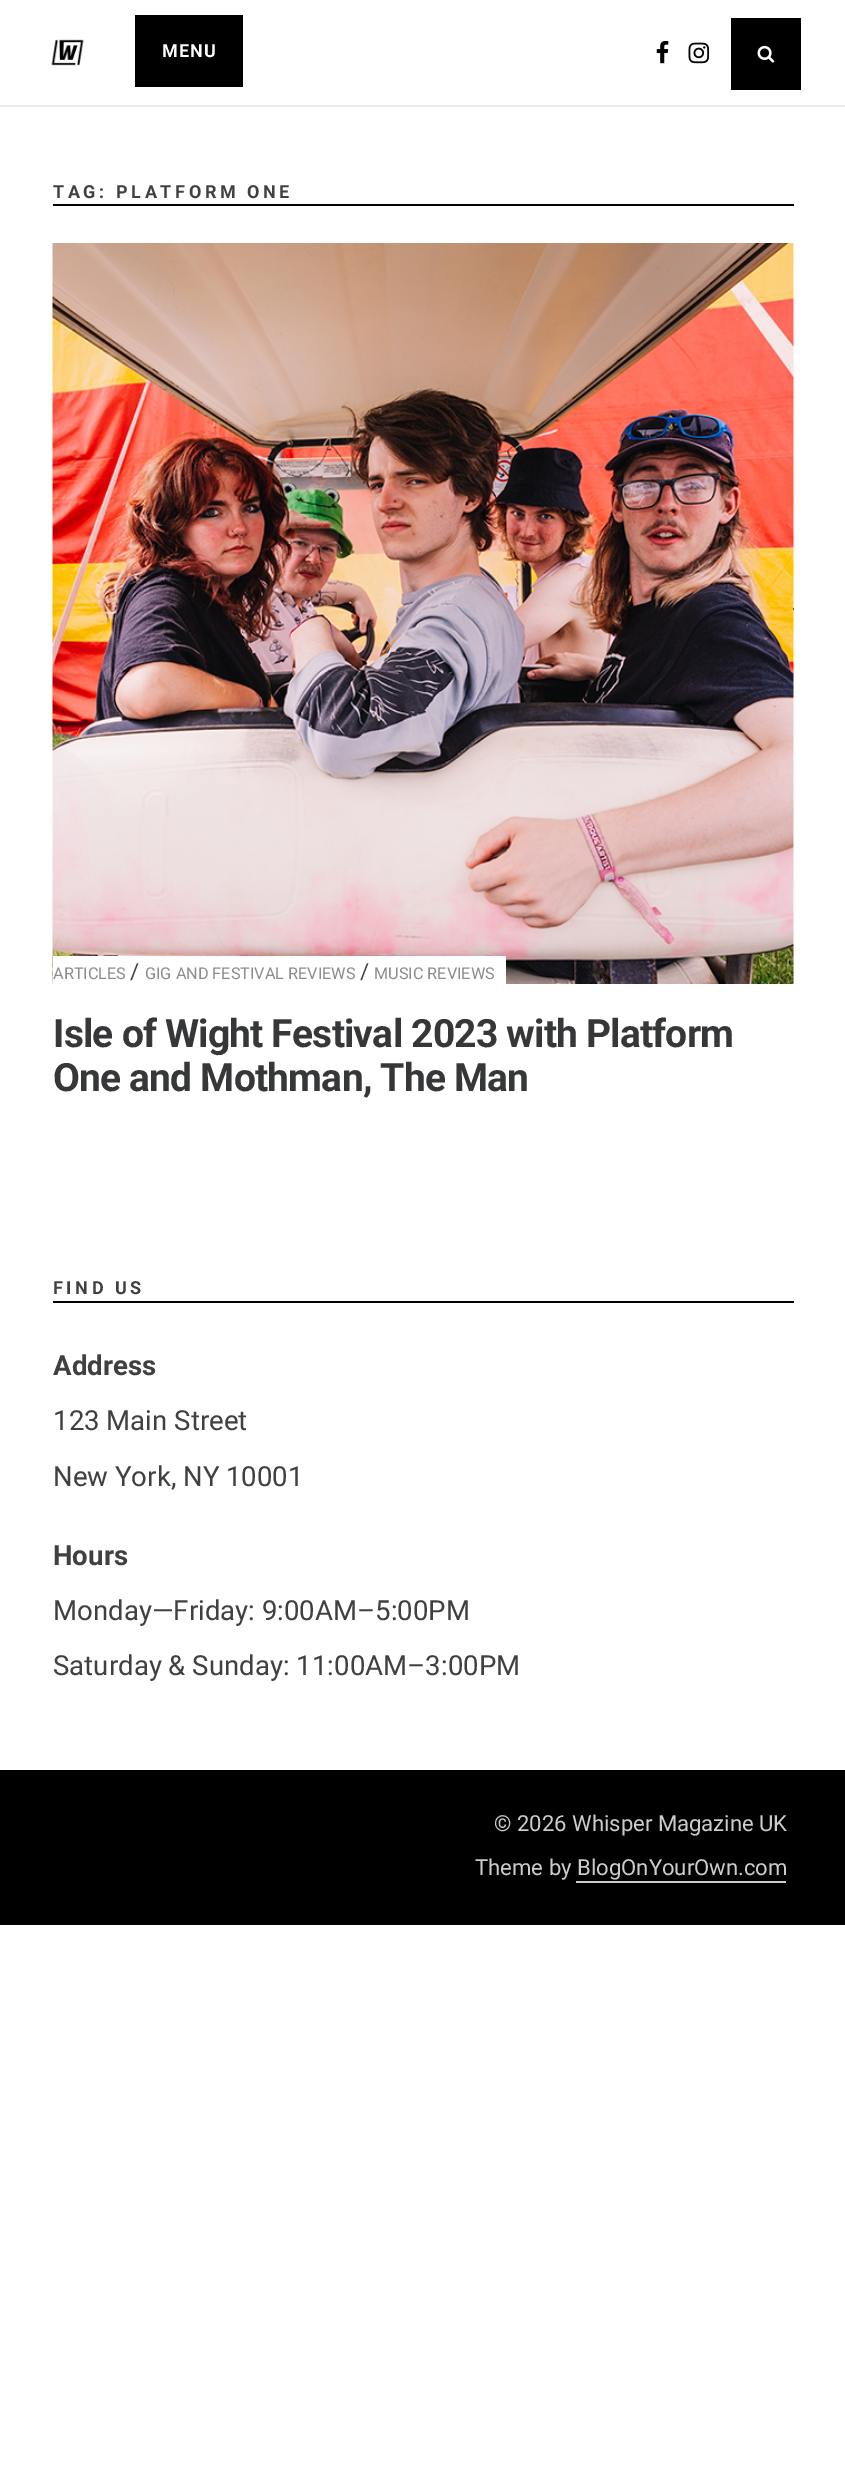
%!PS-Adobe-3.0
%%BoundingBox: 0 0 845 2479
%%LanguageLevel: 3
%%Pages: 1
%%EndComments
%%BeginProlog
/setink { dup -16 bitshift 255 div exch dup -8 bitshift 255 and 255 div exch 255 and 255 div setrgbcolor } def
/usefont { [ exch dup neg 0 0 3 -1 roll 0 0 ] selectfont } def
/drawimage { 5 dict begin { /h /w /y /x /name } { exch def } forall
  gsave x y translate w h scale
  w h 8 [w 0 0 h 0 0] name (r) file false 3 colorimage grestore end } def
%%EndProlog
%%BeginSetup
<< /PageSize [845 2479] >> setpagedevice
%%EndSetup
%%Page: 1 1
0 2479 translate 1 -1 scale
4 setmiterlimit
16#FFFFFF setink
0 0 845 2479 rectfill
16#EDEBEB setink
0 105 845 2 rectfill
(img1.raw) 51 39 33 27 drawimage
16#000000 setink
135 15 108 72 rectfill
/Roboto-Bold 18 usefont
16#FFFFFF setink
162 57 moveto 1 0 (MENU) ashow
(img2.raw) 656 40 13 24 drawimage
(img3.raw) 688 42 22 22 drawimage
16#000000 setink
731 18 70 72 rectfill
(img4.raw) 757 45 18 18 drawimage
53 204 741 2 rectfill
16#404040 setink
53 198 moveto 3.6 0 (TAG: PLATFORM ONE) ashow
16#000000 setink
793 608 1 2 rectfill
(img5.raw) 52 243 742 741 drawimage
16#FFFFFF setink
53 956 453 28 rectfill
/Roboto-Regular 16.25 usefont
16#8A8C8E setink
53 979 moveto (ARTICLES) show
/Roboto-Regular 22 usefont
16#404040 setink
130 979 moveto (/) show
/Roboto-Regular 16.25 usefont
16#8A8C8E setink
145 979 moveto (GIG AND FESTIVAL REVIEWS) show
/Roboto-Regular 22 usefont
16#404040 setink
360 979 moveto (/) show
/Roboto-Regular 16.25 usefont
16#8A8C8E setink
374 979 moveto (MUSIC REVIEWS) show
/Roboto-Bold 39 usefont
16#363738 setink
53 1047 moveto -0.8 0 (Isle of Wight Festival 2023 with Platform) ashow
53 1091 moveto -0.8 0 (One and Mothman, The Man) ashow
16#000000 setink
53 1301 741 2 rectfill
/Roboto-Bold 18 usefont
16#404040 setink
53 1294 moveto 3.6 0 (FIND US) ashow
/Roboto-Bold 27.6 usefont
53 1375 moveto (Address) show
/Roboto-Regular 27.6 usefont
53 1430 moveto (123 Main Street) show
53 1486 moveto (New York, NY 10001) show
/Roboto-Bold 27.6 usefont
53 1565 moveto (Hours) show
/Roboto-Regular 27.6 usefont
53 1620 moveto (Monday—Friday: 9:00AM–5:00PM) show
53 1675 moveto (Saturday & Sunday: 11:00AM–3:00PM) show
16#000000 setink
0 1770 845 155 rectfill
/Roboto-Regular 22.1 usefont
16#CCCCCC setink
494 1831 moveto (© 2026 Whisper Magazine UK) show
475 1875 moveto (Theme by BlogOnYourOwn.com) show
576 1881 210 2 rectfill
showpage
%%EOF
